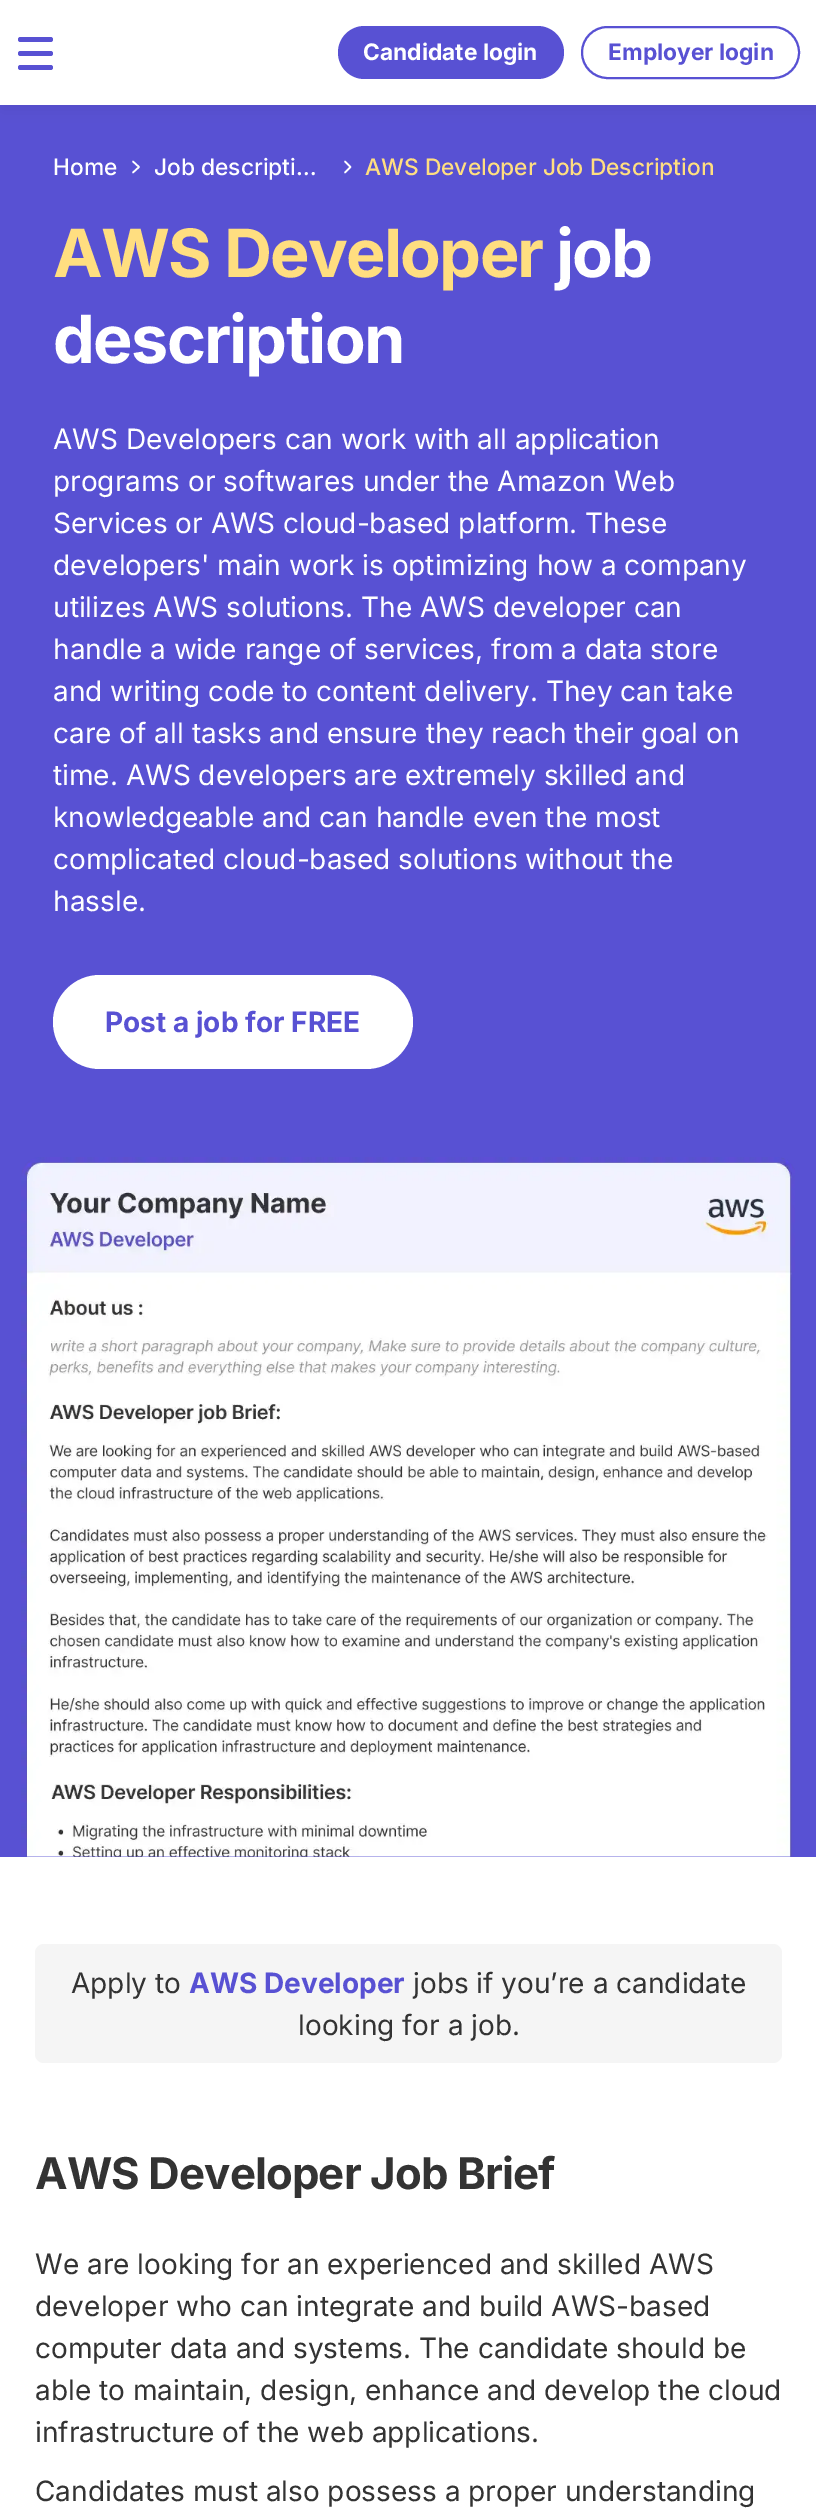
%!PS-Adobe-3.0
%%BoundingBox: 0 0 816 2512
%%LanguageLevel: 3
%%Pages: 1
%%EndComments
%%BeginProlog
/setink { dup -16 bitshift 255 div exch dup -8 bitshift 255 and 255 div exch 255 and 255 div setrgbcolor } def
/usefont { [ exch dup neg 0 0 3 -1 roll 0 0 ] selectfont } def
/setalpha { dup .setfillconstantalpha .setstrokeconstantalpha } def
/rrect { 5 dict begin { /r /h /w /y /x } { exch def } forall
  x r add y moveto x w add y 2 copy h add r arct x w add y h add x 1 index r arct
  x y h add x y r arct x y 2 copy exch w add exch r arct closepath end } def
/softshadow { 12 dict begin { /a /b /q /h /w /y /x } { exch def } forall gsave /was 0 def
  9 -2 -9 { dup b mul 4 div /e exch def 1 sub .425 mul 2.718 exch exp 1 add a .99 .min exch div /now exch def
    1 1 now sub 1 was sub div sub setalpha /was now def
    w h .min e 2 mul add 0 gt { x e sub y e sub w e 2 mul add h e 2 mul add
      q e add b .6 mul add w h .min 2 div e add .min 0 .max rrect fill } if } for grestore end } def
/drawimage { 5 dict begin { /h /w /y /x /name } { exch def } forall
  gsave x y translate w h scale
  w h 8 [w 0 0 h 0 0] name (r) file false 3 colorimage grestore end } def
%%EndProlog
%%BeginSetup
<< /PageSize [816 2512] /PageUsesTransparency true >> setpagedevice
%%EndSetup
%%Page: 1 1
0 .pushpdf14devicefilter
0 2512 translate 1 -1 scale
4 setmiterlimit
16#5851D3 setink
0 0 816 2512 rectfill
16#000000 setink
2 7 814 102 0 8 0.05 softshadow
16#FFFFFF setink
0 0 816 105 rectfill
16#5851D3 setink
18 37 35 5 2.5 rrect fill
18 51 35 5 2.5 rrect fill
18 65 35 5 2.5 rrect fill
338 26 226 53 26.5 rrect fill
/Inter-Bold 22.75 usefont
16#FFFFFF setink
363 60 moveto (Candidate login) show
16#5851D3 setink
2 setlinewidth
582 27 217 51 25.5 rrect stroke
608 60 moveto (Employer login) show
/Inter-Medium 22.75 usefont
16#FFFFFF setink
53 175 moveto (Home) show
1.6 setlinewidth
1 setlinecap
1 setlinejoin
133 161.5 moveto 139 167 lineto 133 172.5 lineto stroke
154 175 moveto (Job descripti…) show
345 161.5 moveto 350.5 167 lineto 345 172.5 lineto stroke
16#FFDE80 setink
365 175 moveto (AWS Developer Job Description) show
/Inter-Bold 66.5 usefont
53 277 moveto -1.75 0 (AWS Developer) ashow
16#FFFFFF setink
556 277 moveto -1.75 0 (job) ashow
53 363 moveto -1.75 0 (description) ashow
/Inter-Regular 28 usefont
[
    [(AWS Developers can work with all application) 53 449]
    [(programs or softwares under the Amazon Web) 53 491]
    [(Services or AWS cloud-based platform. These) 53 533]
    [(developers' main work is optimizing how a company) 53 575]
    [(utilizes AWS solutions. The AWS developer can) 53 617]
    [(handle a wide range of services, from a data store) 53 659]
    [(and writing code to content delivery. They can take) 53 701]
    [(care of all tasks and ensure they reach their goal on) 53 743]
    [(time. AWS developers are extremely skilled and) 53 785]
    [(knowledgeable and can handle even the most) 53 827]
    [(complicated cloud-based solutions without the) 53 869]
    [(hassle.) 53 911]
] { aload pop moveto show } forall
53 975 360 94 47 rrect fill
/Inter-Bold 28 usefont
16#5851D3 setink
105 1032 moveto (Post a job for FREE) show
(img1.raw) 21 1157 774 700 drawimage
16#FFFFFF setink
0 1857 816 655 rectfill
16#F5F5F5 setink
35 1944 747 119 9 rrect fill
/Inter-Regular 28 usefont
16#333333 setink
71 1993 moveto (Apply to) show
/Inter-Bold 28 usefont
16#5851D3 setink
189 1993 moveto (AWS Developer) show
/Inter-Regular 28 usefont
16#333333 setink
413 1993 moveto (jobs if you’re a candidate) show
298 2035 moveto (looking for a job.) show
/Inter-Bold 43.75 usefont
35 2189 moveto -0.9 0 (AWS Developer Job Brief) ashow
/Inter-Regular 28 usefont
[
    [(We are looking for an experienced and skilled AWS) 35 2274]
    [(developer who can integrate and build AWS-based) 35 2316]
    [(computer data and systems. The candidate should be) 35 2358]
    [(able to maintain, design, enhance and develop the cloud) 35 2400]
    [(infrastructure of the web applications.) 35 2442]
    [(Candidates must also possess a proper understanding) 35 2501]
] { aload pop moveto show } forall
.poppdf14devicefilter showpage
%%EOF
